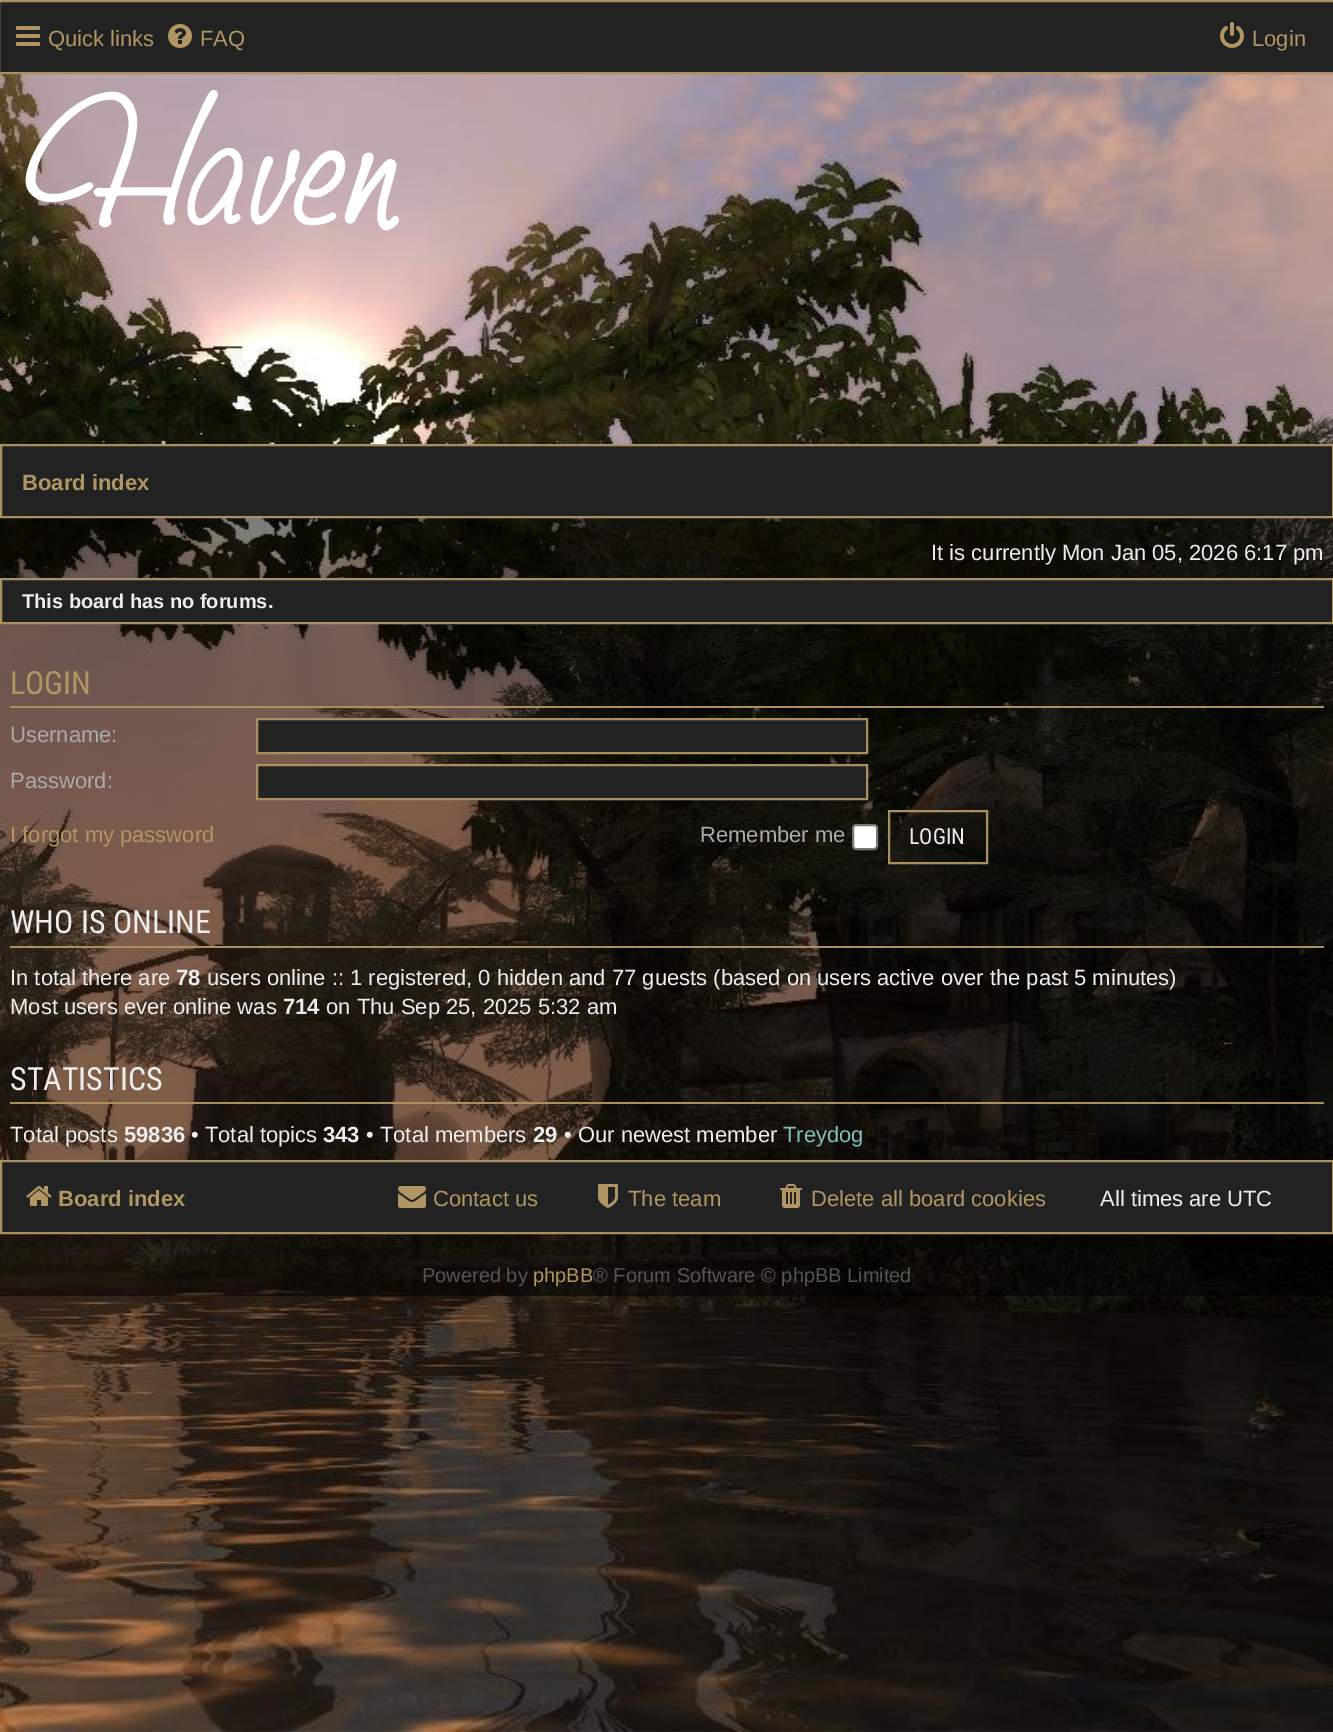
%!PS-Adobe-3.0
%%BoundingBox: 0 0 1333 1732
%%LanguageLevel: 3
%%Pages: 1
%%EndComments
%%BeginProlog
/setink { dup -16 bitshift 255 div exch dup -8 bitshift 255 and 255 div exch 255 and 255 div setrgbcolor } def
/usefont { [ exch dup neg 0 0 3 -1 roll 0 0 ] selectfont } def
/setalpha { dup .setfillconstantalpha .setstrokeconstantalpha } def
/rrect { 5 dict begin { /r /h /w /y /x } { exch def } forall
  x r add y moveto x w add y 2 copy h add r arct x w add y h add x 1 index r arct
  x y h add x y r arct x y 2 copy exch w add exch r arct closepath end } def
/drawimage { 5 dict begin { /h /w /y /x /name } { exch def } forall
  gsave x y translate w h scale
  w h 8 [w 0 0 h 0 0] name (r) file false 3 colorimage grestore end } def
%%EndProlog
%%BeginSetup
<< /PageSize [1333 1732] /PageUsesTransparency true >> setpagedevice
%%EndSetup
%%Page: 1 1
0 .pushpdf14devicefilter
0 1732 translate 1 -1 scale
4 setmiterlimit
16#FFFFFF setink
0 0 1333 1732 rectfill
(img1.raw) 0 74 1333 1658 drawimage
(img2.raw) 0 74 1333 1658 drawimage
16#222222 setink
-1 1 moveto 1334 1 lineto 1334 73 lineto -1 73 lineto closepath gsave fill grestore
16#AA8F60 setink
2 setlinewidth
stroke
(img3.raw) 16 26 24 20 drawimage
/LiberationSans-Regular 22 usefont
16#B19562 setink
48 46 moveto (Quick links) show
(img4.raw) 168 24 24 24 drawimage
200 46 moveto (FAQ) show
(img5.raw) 1220 22 24 26 drawimage
1252 46 moveto (Login) show
/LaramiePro-SemiBold 200 usefont
16#FFFFFF setink
40 224 moveto 3 0 (Haven) ashow
0.5 setalpha
16#000000 setink
0 518 1333 778 rectfill
1 setalpha
16#222222 setink
1 445 moveto 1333 445 lineto 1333 517 lineto 1 517 lineto closepath gsave fill grestore
16#AA8F60 setink
stroke
/LiberationSans-Bold 22 usefont
16#B19562 setink
22 490 moveto (Board index) show
/LiberationSans-Regular 22 usefont
16#EDEDED setink
931 560 moveto (It is currently Mon Jan 05, 2026 6:17 pm) show
16#222222 setink
1 579 moveto 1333 579 lineto 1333 623 lineto 1 623 lineto closepath gsave fill grestore
16#AA8F60 setink
stroke
/LiberationSans-Bold 20 usefont
16#EDEDED setink
22 608 moveto (This board has no forums.) show
16#AA8F60 setink
10 706 1314 2 rectfill
/RobotoCondensed-Regular 32 usefont
16#B19562 setink
10 694 moveto (LOGIN) show
/LiberationSans-Regular 22 usefont
16#AAAAAA setink
10 742 moveto (Username:) show
16#232323 setink
257 719 moveto 867 719 lineto 867 753 lineto 257 753 lineto closepath gsave fill grestore
16#AA8F60 setink
stroke
16#AAAAAA setink
10 788 moveto (Password:) show
16#232323 setink
257 765 moveto 867 765 lineto 867 799 lineto 257 799 lineto closepath gsave fill grestore
16#AA8F60 setink
stroke
16#B19562 setink
10 842 moveto (I forgot my password) show
16#AAAAAA setink
700 842 moveto (Remember me) show
16#FFFFFF setink
853 825 24 24 3 rrect gsave fill grestore
16#767676 setink
stroke
16#AA8F60 setink
889 811 98 52 rectstroke
/RobotoCondensed-Regular 22 usefont
16#EDEDED setink
909 844 moveto (LOGIN) show
16#AA8F60 setink
10 946 1314 2 rectfill
/RobotoCondensed-Regular 32 usefont
16#EDEDED setink
10 933 moveto (WHO IS ONLINE) show
/LiberationSans-Regular 22 usefont
10 985 moveto (In total there are) show
/LiberationSans-Bold 22 usefont
176 985 moveto (78) show
/LiberationSans-Regular 22 usefont
207 985 moveto (users online :: 1 registered, 0 hidden and 77 guests \(based on users active over the past 5 minutes\)) show
10 1014 moveto (Most users ever online was) show
/LiberationSans-Bold 22 usefont
283 1014 moveto (714) show
/LiberationSans-Regular 22 usefont
326 1014 moveto (on Thu Sep 25, 2025 5:32 am) show
16#AA8F60 setink
10 1102 1314 2 rectfill
/RobotoCondensed-Regular 32 usefont
16#EDEDED setink
10 1090 moveto (STATISTICS) show
/LiberationSans-Regular 22 usefont
10 1142 moveto (Total posts) show
/LiberationSans-Bold 22 usefont
124 1142 moveto (59836) show
/LiberationSans-Regular 22 usefont
191 1142 moveto (• Total topics) show
/LiberationSans-Bold 22 usefont
323 1142 moveto (343) show
/LiberationSans-Regular 22 usefont
366 1142 moveto (• Total members) show
/LiberationSans-Bold 22 usefont
533 1142 moveto (29) show
/LiberationSans-Regular 22 usefont
564 1142 moveto (• Our newest member) show
16#80BFBF setink
783 1142 moveto (Treydog) show
16#222222 setink
1 1161 moveto 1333 1161 lineto 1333 1233 lineto 1 1233 lineto closepath gsave fill grestore
16#AA8F60 setink
stroke
(img6.raw) 26 1186 26 20 drawimage
/LiberationSans-Bold 22 usefont
16#B19562 setink
58 1206 moveto (Board index) show
(img7.raw) 398 1186 28 22 drawimage
/LiberationSans-Regular 22 usefont
433 1206 moveto (Contact us) show
(img8.raw) 598 1184 20 24 drawimage
628 1206 moveto (The team) show
(img9.raw) 780 1184 22 24 drawimage
811 1206 moveto (Delete all board cookies) show
16#EDEDED setink
1100 1206 moveto (All times are UTC) show
/LiberationSans-Regular 20 usefont
16#555555 setink
422 1282 moveto (Powered by) show
16#B19562 setink
533 1282 moveto (phpBB) show
16#555555 setink
593 1282 moveto (® Forum Software © phpBB Limited) show
.poppdf14devicefilter showpage
%%EOF
